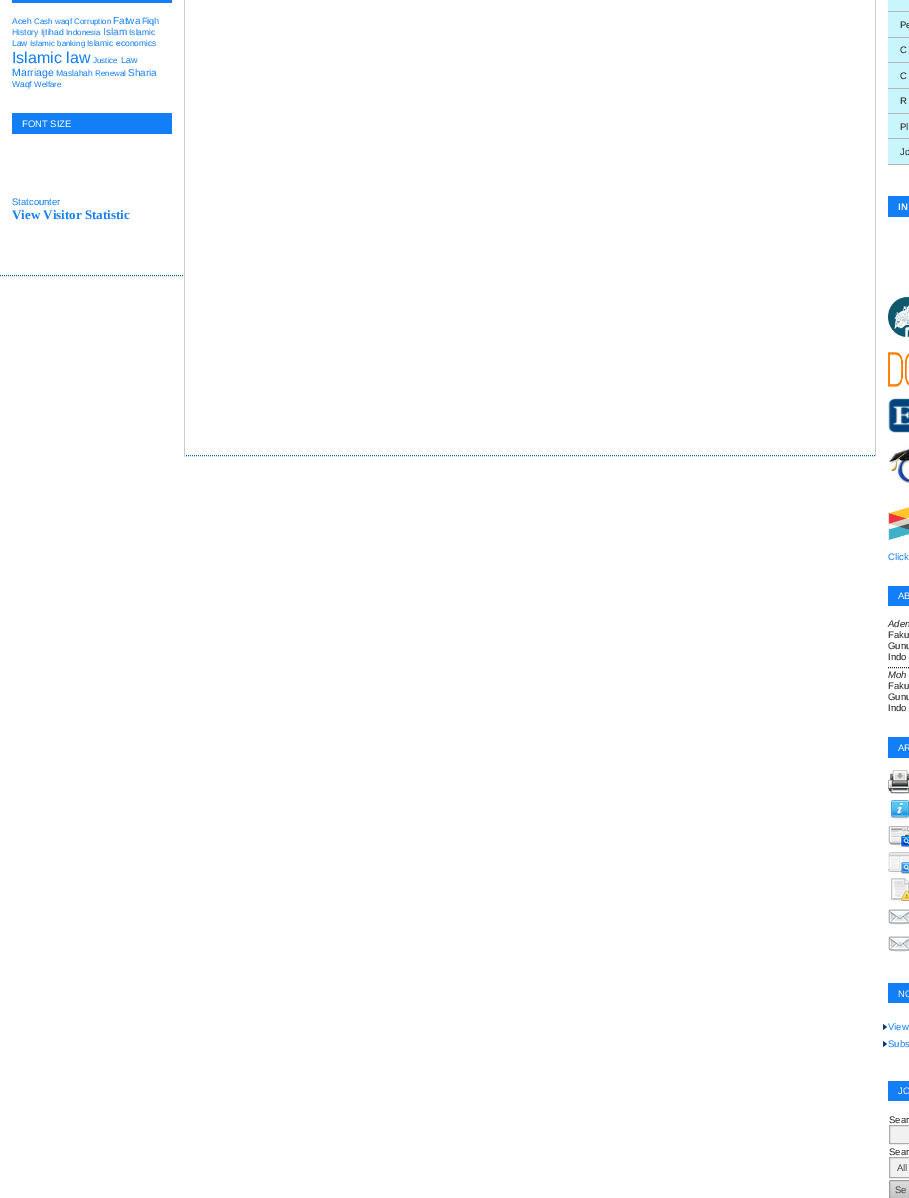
%!PS-Adobe-3.0
%%BoundingBox: 0 0 909 1198
%%LanguageLevel: 3
%%Pages: 1
%%EndComments
%%BeginProlog
/setink { dup -16 bitshift 255 div exch dup -8 bitshift 255 and 255 div exch 255 and 255 div setrgbcolor } def
/usefont { [ exch dup neg 0 0 3 -1 roll 0 0 ] selectfont } def
/rrect { 5 dict begin { /r /h /w /y /x } { exch def } forall
  x r add y moveto x w add y 2 copy h add r arct x w add y h add x 1 index r arct
  x y h add x y r arct x y 2 copy exch w add exch r arct closepath end } def
/drawimage { 5 dict begin { /h /w /y /x /name } { exch def } forall
  gsave x y translate w h scale
  w h 8 [w 0 0 h 0 0] name (r) file false 3 colorimage grestore end } def
%%EndProlog
%%BeginSetup
<< /PageSize [909 1198] >> setpagedevice
%%EndSetup
%%Page: 1 1
0 1198 translate 1 -1 scale
4 setmiterlimit
16#FFFFFF setink
0 0 909 1198 rectfill
16#CCCCCC setink
875 0 1 456 rectfill
16#006699 setink
[1 1] 0 setdash
184 455.5 moveto 876 455.5 lineto stroke
16#CCCCCC setink
184 0 1 456 rectfill
16#006699 setink
0 275.5 moveto 184 275.5 lineto stroke
16#127EF8 setink
12 0 160 3 rectfill
/LiberationSans-Regular 8.5 usefont
12 24 moveto (Aceh) show
/LiberationSans-Regular 8 usefont
34 24 moveto (Cash waqf) show
74 24 moveto (Corruption) show
/LiberationSans-Regular 10 usefont
113 24 moveto (Fatwa) show
/LiberationSans-Regular 9 usefont
142 24 moveto (Fiqh) show
/LiberationSans-Regular 8.5 usefont
12 35 moveto (History) show
41 35 moveto (Ijtihad) show
/LiberationSans-Regular 8 usefont
66 35 moveto (Indonesia) show
/LiberationSans-Regular 10 usefont
103 35 moveto (Islam) show
/LiberationSans-Regular 8.5 usefont
129 35 moveto (Islamic) show
12 46 moveto (Law) show
/LiberationSans-Regular 8 usefont
30 46 moveto (Islamic banking) show
/LiberationSans-Regular 8.5 usefont
87 46 moveto (Islamic economics) show
/LiberationSans-Regular 16 usefont
12 63 moveto (Islamic law) show
/LiberationSans-Regular 8 usefont
93 63 moveto (Justice) show
/LiberationSans-Regular 9 usefont
121 63 moveto (Law) show
/LiberationSans-Regular 10.5 usefont
12 76 moveto (Marriage) show
/LiberationSans-Regular 8.5 usefont
56 76 moveto (Maslahah) show
/LiberationSans-Regular 8 usefont
95 76 moveto (Renewal) show
/LiberationSans-Regular 10 usefont
128 76 moveto (Sharia) show
/LiberationSans-Regular 8.5 usefont
12 87 moveto (Waqf) show
/LiberationSans-Regular 8 usefont
34 87 moveto (Welfare) show
12 113 160 21 rectfill
/LiberationSans-Regular 9.5 usefont
16#FFFFFF setink
22 127 moveto (FONT SIZE) show
16#127EF8 setink
12 205 moveto (Statcounter) show
/LiberationSerif-Bold 13 usefont
12 219 moveto (View Visitor Statistic) show
[
    [888 0 21 11 16#C8F6FC]
    [888 11 21 1 16#B5B5B5]
    [888 12 21 25 16#C8F6FC]
    [888 37 21 1 16#B5B5B5]
] { aload pop setink rectfill } forall
/LiberationSans-Regular 9.5 usefont
16#222222 setink
900 28 moveto (Pe) show
16#C8F6FC setink
888 38 21 24 rectfill
16#B5B5B5 setink
888 62 21 1 rectfill
16#222222 setink
900 53 moveto (C) show
16#C8F6FC setink
888 63 21 25 rectfill
16#B5B5B5 setink
888 88 21 1 rectfill
16#222222 setink
900 79 moveto (C) show
16#C8F6FC setink
888 89 21 24 rectfill
16#B5B5B5 setink
888 113 21 1 rectfill
16#222222 setink
900 104 moveto (R) show
16#C8F6FC setink
888 114 21 24 rectfill
16#B5B5B5 setink
888 138 21 1 rectfill
16#222222 setink
900 130 moveto (Pl) show
16#C8F6FC setink
888 139 21 25 rectfill
16#B5B5B5 setink
888 164 21 1 rectfill
16#222222 setink
900 155 moveto (Jo) show
16#127EF8 setink
888 196 21 21 rectfill
/LiberationSans-Bold 9.5 usefont
16#FFFFFF setink
898 210 moveto (IN) show
(img1.raw) 888 296 21 42 drawimage
(img2.raw) 888 352 21 35 drawimage
(img3.raw) 888 398 21 35 drawimage
(img4.raw) 888 444 21 45 drawimage
(img5.raw) 888 507 21 33 drawimage
/LiberationSans-Regular 9.5 usefont
16#127EF8 setink
888 560 moveto (Click) show
888 586 21 20 rectfill
16#FFFFFF setink
898 599 moveto (AB) show
/LiberationSans-Italic 9.5 usefont
16#222222 setink
888 627 moveto (Aden) show
/LiberationSans-Regular 9.5 usefont
[
    [(Faku) 888 638]
    [(Gunu) 888 649]
    [(Indo) 888 660]
] { aload pop moveto show } forall
888 667.5 moveto 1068 667.5 lineto stroke
/LiberationSans-Italic 9.5 usefont
888 678 moveto (Moh) show
/LiberationSans-Regular 9.5 usefont
[
    [(Faku) 888 689]
    [(Gunu) 888 700]
    [(Indo) 888 711]
] { aload pop moveto show } forall
16#127EF8 setink
888 737 21 21 rectfill
16#FFFFFF setink
898 751 moveto (AR) show
(img6.raw) 888 770 21 24 drawimage
(img7.raw) 889 800 20 20 drawimage
(img8.raw) 888 826 21 21 drawimage
(img9.raw) 888 852 21 22 drawimage
(img10.raw) 889 878 20 23 drawimage
(img11.raw) 888 909 21 16 drawimage
(img11.raw) 888 936 21 16 drawimage
16#127EF8 setink
888 983 21 20 rectfill
16#FFFFFF setink
898 997 moveto (NO) show
16#023A79 setink
883 1030 moveto 883 1024 lineto 887 1027 lineto closepath 883 1047 moveto 883 1041 lineto 887 1044 lineto closepath fill
16#127EF8 setink
888 1030 moveto (View) show
888 1047 moveto (Subs) show
888 1081 21 20 rectfill
16#FFFFFF setink
898 1094 moveto (JO) show
16#222222 setink
889 1123 moveto (Sear) show
16#F1F1F1 setink
889.5 1125.5 moveto 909.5 1125.5 lineto 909.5 1143.5 lineto 889.5 1143.5 lineto closepath gsave fill grestore
16#AAAAAA setink
[] 0 setdash
stroke
16#222222 setink
889 1155 moveto (Sear) show
16#F1F1F1 setink
889.5 1157.5 moveto 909.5 1157.5 lineto 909.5 1177.5 lineto 889.5 1177.5 lineto closepath gsave fill grestore
16#AAAAAA setink
stroke
16#444444 setink
897 1171 moveto (All) show
gsave 889 1181 moveto 909 1181 lineto 909 1198 lineto 889 1198 lineto closepath clip newpath
<< /ShadingType 2 /ColorSpace /DeviceRGB /Coords [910 1181 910 1198] /Extend [true true] /Function << /FunctionType 2 /Domain [0 1] /C0 [0.867 0.867 0.867] /C1 [0.769 0.769 0.769] /N 1 >> >> shfill grestore
16#9D9D9D setink
889.5 1180.5 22 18 1.5 rrect stroke
16#444444 setink
895 1193 moveto (Se) show
showpage
%%EOF
